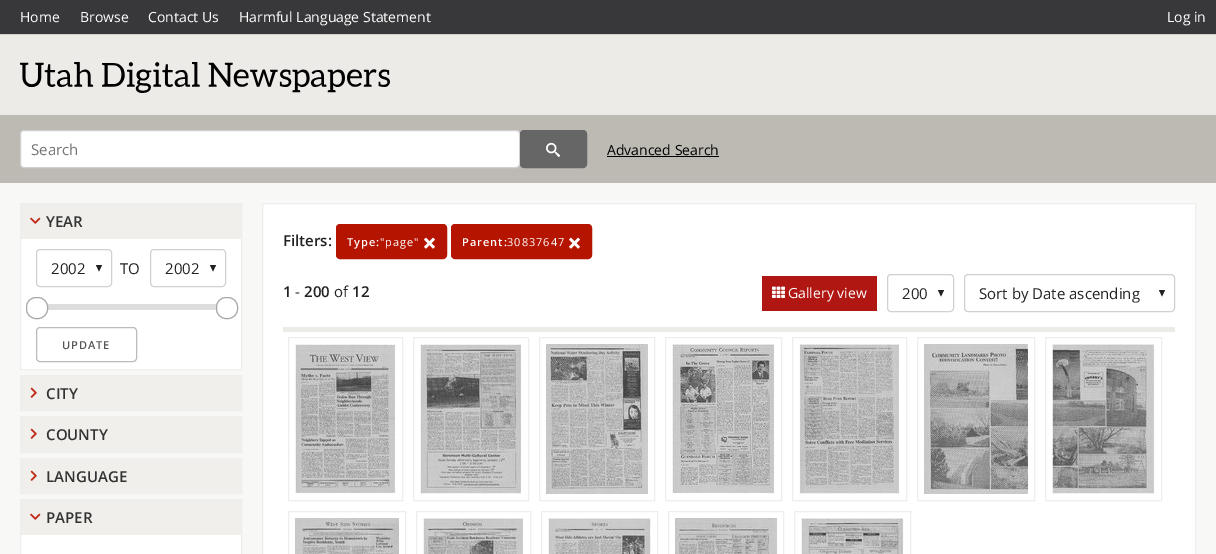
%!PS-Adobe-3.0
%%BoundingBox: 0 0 1216 554
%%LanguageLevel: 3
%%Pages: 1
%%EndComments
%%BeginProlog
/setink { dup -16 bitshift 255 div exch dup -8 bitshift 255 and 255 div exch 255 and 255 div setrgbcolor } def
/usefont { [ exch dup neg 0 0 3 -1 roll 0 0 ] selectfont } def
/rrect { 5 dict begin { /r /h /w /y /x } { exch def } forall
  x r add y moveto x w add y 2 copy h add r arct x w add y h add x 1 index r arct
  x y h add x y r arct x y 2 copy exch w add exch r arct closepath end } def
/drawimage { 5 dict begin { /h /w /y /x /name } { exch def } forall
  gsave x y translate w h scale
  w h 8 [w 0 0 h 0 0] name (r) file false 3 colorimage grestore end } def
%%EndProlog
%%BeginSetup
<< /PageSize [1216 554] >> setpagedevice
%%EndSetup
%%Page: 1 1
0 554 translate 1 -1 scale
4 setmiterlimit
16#F8F8F7 setink
0 0 1216 554 rectfill
16#383739 setink
0 0 1216 34 rectfill
/OpenSans-Regular 14 usefont
16#FFFFFF setink
[
    [(Home) 20 22]
    [(Browse) 80 22]
    [(Contact Us) 148 22]
    [(Harmful Language Statement) 239 22]
    [(Log in) 1167 22]
] { aload pop moveto show } forall
16#EDEBE7 setink
0 35 1216 80 rectfill
16#D8D2C9 setink
0 34 1216 1 rectfill
(img1.raw) 20 62 370 31 drawimage
16#BDBAB4 setink
0 115 1216 68 rectfill
16#FFFFFF setink
20.5 130.5 499 37 3.5 rrect gsave fill grestore
16#D1D1D1 setink
stroke
/OpenSans-Regular 15 usefont
16#757575 setink
31 155 moveto (Search) show
16#666666 setink
520.5 130.5 66 37 3.5 rrect gsave fill grestore
stroke
(img2.raw) 546 142 14 15 drawimage
/OpenSans-Regular 14 usefont
16#000000 setink
607 155 moveto (Advanced Search) show
607 156 112 1 rectfill
16#FFFFFF setink
21 239 220 130 rectfill
16#EEEEEE setink
20.5 203.5 221 166 rectstroke
16#F0EFEC setink
21 204 220 35 rectfill
(img3.raw) 30 217 11 7 drawimage
/OpenSans-SemiBold 15 usefont
16#333333 setink
46 227 moveto (YEAR) show
16#222222 setink
96 265 moveto 99 271.5 lineto 102 265 lineto fill
16#D1D1D1 setink
36.5 249.5 75 37 3.5 rrect stroke
/OpenSans-Regular 15 usefont
16#222222 setink
51 274 moveto (2002) show
120 274 moveto (TO) show
210 265 moveto 213 271.5 lineto 216 265 lineto fill
16#D1D1D1 setink
150.5 249.5 75 37 3.5 rrect stroke
16#222222 setink
165 274 moveto (2002) show
16#DDDDDD setink
47 304 170 6 rectfill
16#FFFFFF setink
26.5 297.5 21 21 9.5 rrect gsave fill grestore
16#A7A7A7 setink
stroke
16#FFFFFF setink
216.5 297.5 21 21 9.5 rrect gsave fill grestore
16#A7A7A7 setink
stroke
16#BBBBBB setink
36.5 327.5 100 34 3.5 rrect stroke
/OpenSans-SemiBold 11 usefont
16#555555 setink
62 349 moveto 1 0 (UPDATE) ashow
16#EEEEEE setink
20.5 375.5 221 35 rectstroke
16#F0EFEC setink
21 376 220 34 rectfill
(img4.raw) 30 387 7 11 drawimage
/OpenSans-SemiBold 15 usefont
16#333333 setink
46 399 moveto (CITY) show
16#EEEEEE setink
20.5 416.5 221 36 rectstroke
16#F0EFEC setink
21 417 220 35 rectfill
(img4.raw) 30 428 7 11 drawimage
16#333333 setink
46 440 moveto (COUNTY) show
16#EEEEEE setink
20.5 458.5 221 35 rectstroke
16#F0EFEC setink
21 459 220 34 rectfill
(img4.raw) 30 470 7 11 drawimage
16#333333 setink
46 482 moveto (LANGUAGE) show
16#FFFFFF setink
21 535 220 19 rectfill
16#EEEEEE setink
20.5 499.5 221 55 rectstroke
16#F0EFEC setink
21 500 220 35 rectfill
(img3.raw) 30 513 11 7 drawimage
16#333333 setink
46 523 moveto (PAPER) show
16#FFFFFF setink
262.5 203.5 moveto 1195.5 203.5 lineto 1195.5 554.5 lineto 262.5 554.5 lineto closepath gsave fill grestore
16#EEEEEE setink
stroke
16#222222 setink
283 246 moveto (Filters:) show
16#B51500 setink
336.5 224.5 110 34 3.5 rrect gsave fill grestore
stroke
/OpenSans-SemiBold 11 usefont
16#FFFFFF setink
347 246 moveto 1 0 (Type:) ashow
/OpenSans-Regular 11 usefont
380 246 moveto 1 0 ("page") ashow
(img5.raw) 424 237 11 12 drawimage
16#B51500 setink
451.5 224.5 140 34 3.5 rrect gsave fill grestore
stroke
/OpenSans-SemiBold 11 usefont
16#FFFFFF setink
462 246 moveto 1 0 (Parent:) ashow
/OpenSans-Regular 11 usefont
507 246 moveto 1 0 (30837647) ashow
(img5.raw) 569 237 11 12 drawimage
16#EDEBE7 setink
283 327 892 5 rectfill
/OpenSans-SemiBold 15 usefont
16#222222 setink
283 297 moveto (1) show
/OpenSans-Regular 15 usefont
295 297 moveto (-) show
/OpenSans-SemiBold 15 usefont
304 297 moveto (200) show
/OpenSans-Regular 15 usefont
334 297 moveto (of) show
/OpenSans-SemiBold 15 usefont
352 297 moveto (12) show
16#B01612 setink
762 276 115 35 rectfill
(img6.raw) 772 286 13 12 drawimage
/OpenSans-Regular 14 usefont
16#FFFFFF setink
788 298 moveto (Gallery view) show
16#222222 setink
938 290 moveto 941 296.5 lineto 944 290 lineto fill
16#D1D1D1 setink
887.5 274.5 66 37 3.5 rrect stroke
/OpenSans-Regular 15 usefont
16#222222 setink
902 299 moveto (200) show
1159 290 moveto 1162 296.5 lineto 1165 290 lineto fill
16#D1D1D1 setink
964.5 274.5 210 37 3.5 rrect stroke
16#222222 setink
979 299 moveto (Sort by Date ascending) show
16#EEEEEE setink
288.5 337.5 114 163 rectstroke
413.5 337.5 115 163 rectstroke
539.5 337.5 115 163 rectstroke
665.5 337.5 116 163 rectstroke
792.5 337.5 114 163 rectstroke
917.5 337.5 117 163 rectstroke
1045.5 337.5 116 163 rectstroke
(img7.raw) 295 344 101 150 drawimage
(img8.raw) 420 344 102 150 drawimage
(img9.raw) 546 344 102 150 drawimage
(img10.raw) 672 344 103 150 drawimage
(img11.raw) 799 344 101 150 drawimage
(img12.raw) 924 344 104 150 drawimage
(img13.raw) 1052 344 103 150 drawimage
288.5 511.5 117 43 rectstroke
416.5 511.5 114 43 rectstroke
541.5 511.5 116 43 rectstroke
668.5 511.5 115 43 rectstroke
794.5 511.5 116 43 rectstroke
(img14.raw) 295 518 104 36 drawimage
(img15.raw) 423 518 101 36 drawimage
(img16.raw) 548 518 103 36 drawimage
(img17.raw) 675 518 102 36 drawimage
(img18.raw) 801 518 103 36 drawimage
showpage
%%EOF
